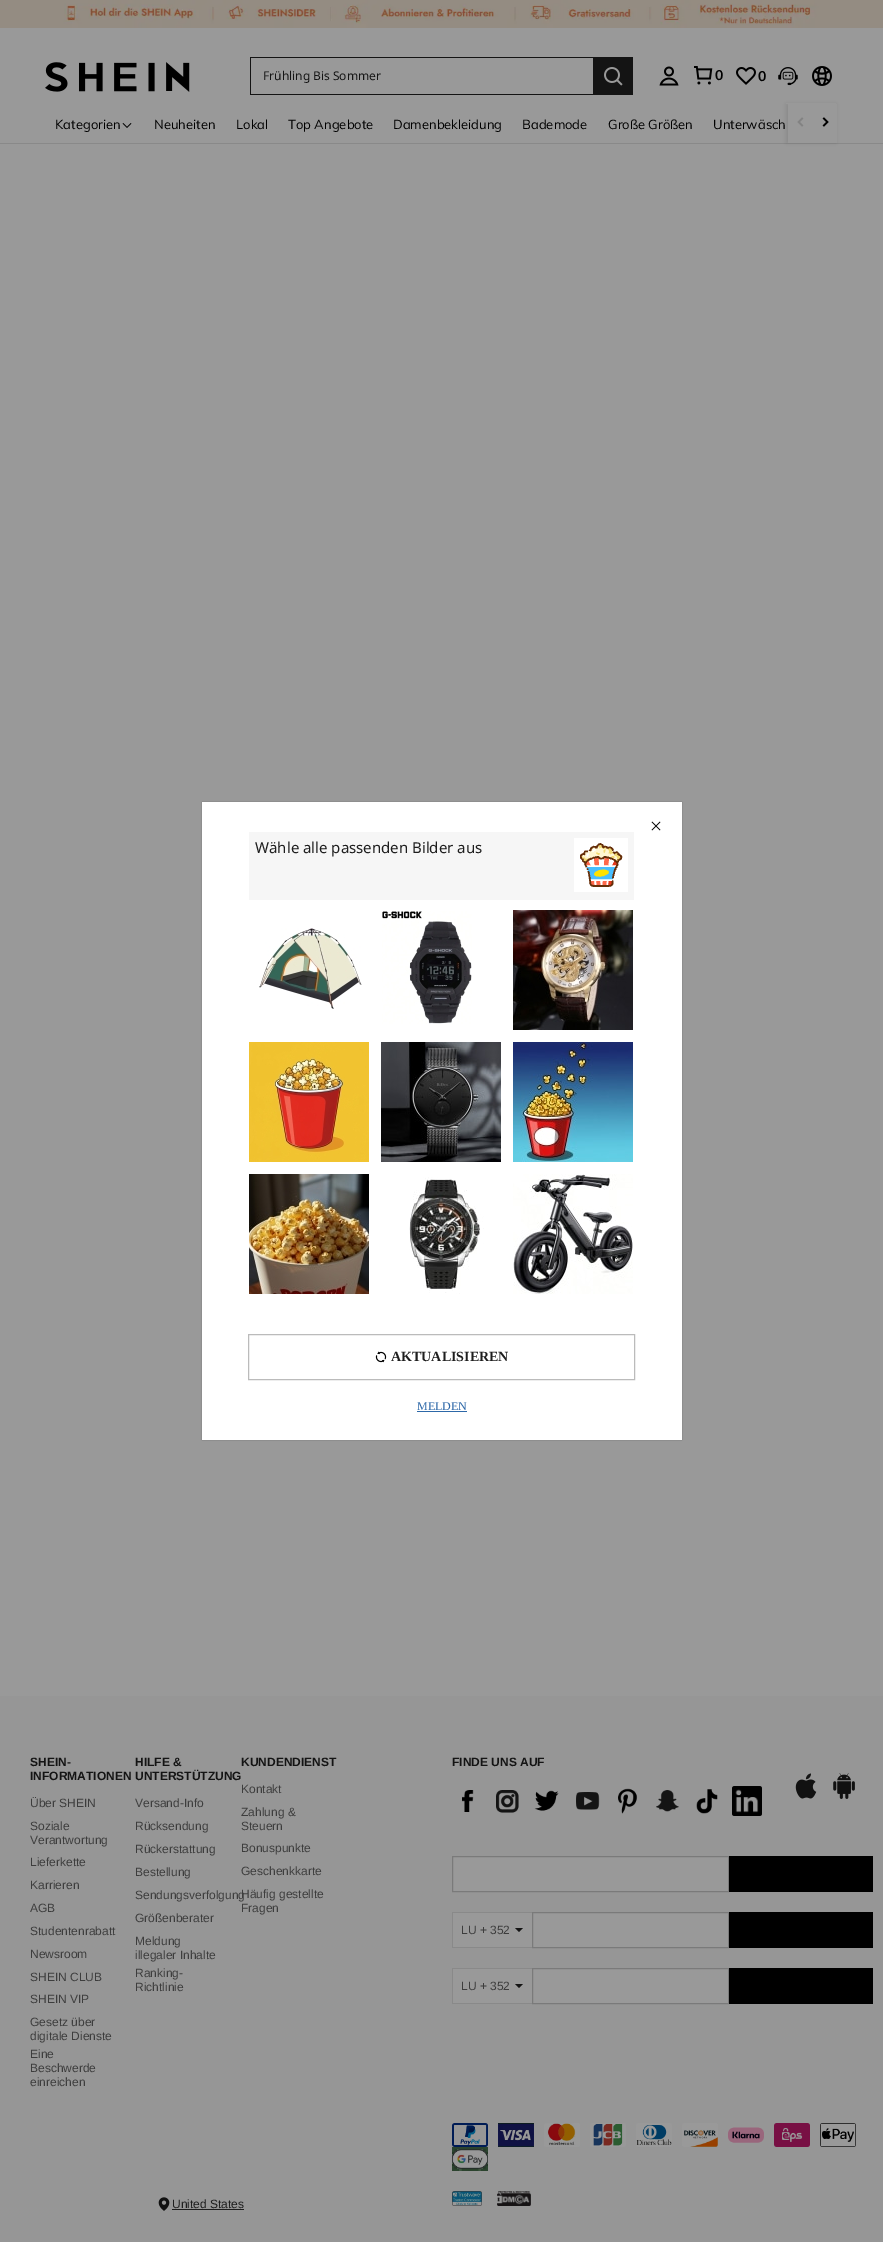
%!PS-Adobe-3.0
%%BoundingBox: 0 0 883 2242
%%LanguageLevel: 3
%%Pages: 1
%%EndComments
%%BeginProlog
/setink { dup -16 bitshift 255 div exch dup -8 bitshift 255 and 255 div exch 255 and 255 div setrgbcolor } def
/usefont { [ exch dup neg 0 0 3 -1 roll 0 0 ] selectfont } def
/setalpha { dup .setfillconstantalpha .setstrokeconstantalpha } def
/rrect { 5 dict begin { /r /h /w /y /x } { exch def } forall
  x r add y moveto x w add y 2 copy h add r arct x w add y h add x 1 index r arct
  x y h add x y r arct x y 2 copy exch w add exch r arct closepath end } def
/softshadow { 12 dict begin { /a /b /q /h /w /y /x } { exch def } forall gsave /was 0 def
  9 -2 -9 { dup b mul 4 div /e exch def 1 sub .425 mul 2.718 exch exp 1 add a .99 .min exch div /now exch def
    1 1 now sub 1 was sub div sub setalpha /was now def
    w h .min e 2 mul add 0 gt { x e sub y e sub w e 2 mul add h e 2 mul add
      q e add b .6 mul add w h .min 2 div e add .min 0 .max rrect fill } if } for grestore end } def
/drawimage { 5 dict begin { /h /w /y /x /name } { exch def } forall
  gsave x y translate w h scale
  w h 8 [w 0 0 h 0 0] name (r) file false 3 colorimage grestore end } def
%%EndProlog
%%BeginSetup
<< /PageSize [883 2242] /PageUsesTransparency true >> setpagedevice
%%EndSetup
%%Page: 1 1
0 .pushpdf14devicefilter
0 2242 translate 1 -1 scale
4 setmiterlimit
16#999999 setink
0 0 883 2242 rectfill
(img1.raw) 0 0 883 28 drawimage
16#898989 setink
0 143 883 1 rectfill
16#000000 setink
786 104 50 39 0 1.5 0.08 softshadow
16#999999 setink
786 103 50 1 rectfill
(img2.raw) 45 62 145 30 drawimage
[
    [250 57 343 1 16#141414]
    [250 94 343 1 16#141414]
    [250 57 1 38 16#141414]
] { aload pop setink rectfill } forall
/NotoSans-Regular 12 usefont
263 80 moveto (Frühling Bis Sommer) show
593 57 40 38 rectfill
(img3.raw) 604 67 19 19 drawimage
(img4.raw) 659 66 20 20 drawimage
(img5.raw) 694 66 19 19 drawimage
/Muli-Bold 14 usefont
16#000000 setink
715 80 moveto (0) show
(img6.raw) 736 67 20 18 drawimage
758 81 moveto (0) show
(img7.raw) 778 67 20 19 drawimage
(img8.raw) 812 66 20 20 drawimage
/Muli-Regular 13 usefont
55 129 moveto (Kategorien) show
(img9.raw) 122 123 10 5 drawimage
[
    [(Neuheiten) 154 129]
    [(Lokal) 236 129]
    [(Top Angebote) 288 129]
    [(Damenbekleidung) 393 129]
    [(Bademode) 522 129]
    [(Große Größen) 608 129]
    [(Unterwäsch) 713 129]
] { aload pop moveto show } forall
16#999999 setink
788 104 49 39 rectfill
(img10.raw) 797 117 7 10 drawimage
(img11.raw) 822 117 7 10 drawimage
16#969696 setink
0 1696 883 546 rectfill
/LiberationSans-Bold 12 usefont
16#141414 setink
30 1766 moveto (SHEIN-) show
30 1780 moveto (INFORMATIONEN) show
/LiberationSans-Regular 12 usefont
16#3D3D3D setink
[
    [(Über SHEIN) 30 1807]
    [(Soziale) 30 1830]
    [(Verantwortung) 30 1844]
    [(Lieferkette) 30 1866]
    [(Karrieren) 30 1889]
    [(AGB) 30 1912]
    [(Studentenrabatt) 30 1935]
    [(Newsroom) 30 1958]
    [(SHEIN CLUB) 30 1981]
    [(SHEIN VIP) 30 2003]
    [(Gesetz über) 30 2026]
    [(digitale Dienste) 30 2040]
    [(Eine) 30 2058]
    [(Beschwerde) 30 2072]
    [(einreichen) 30 2086]
] { aload pop moveto show } forall
/LiberationSans-Bold 12 usefont
16#141414 setink
135 1766 moveto (HILFE &) show
135 1780 moveto (UNTERSTÜTZUNG) show
/LiberationSans-Regular 12 usefont
16#3D3D3D setink
[
    [(Versand-Info) 135 1807]
    [(Rücksendung) 135 1830]
    [(Rückerstattung) 135 1853]
    [(Bestellung) 135 1876]
    [(Sendungsverfolgung) 135 1899]
    [(Größenberater) 135 1922]
    [(Meldung) 135 1945]
    [(illegaler Inhalte) 135 1959]
    [(Ranking-) 135 1977]
    [(Richtlinie) 135 1991]
] { aload pop moveto show } forall
/LiberationSans-Bold 12 usefont
16#141414 setink
241 1766 moveto (KUNDENDIENST) show
/LiberationSans-Regular 12 usefont
16#3D3D3D setink
[
    [(Kontakt) 241 1793]
    [(Zahlung &) 241 1816]
    [(Steuern) 241 1830]
    [(Bonuspunkte) 241 1852]
    [(Geschenkkarte) 241 1875]
    [(Häufig gestellte) 241 1898]
    [(Fragen) 241 1912]
] { aload pop moveto show } forall
/LiberationSans-Bold 12 usefont
16#141414 setink
452 1766 moveto (FINDE UNS AUF) show
(img12.raw) 462 1790 12 22 drawimage
(img13.raw) 496 1790 23 23 drawimage
(img14.raw) 534 1790 25 21 drawimage
(img15.raw) 576 1792 24 18 drawimage
(img16.raw) 618 1788 20 26 drawimage
(img17.raw) 656 1790 23 22 drawimage
(img18.raw) 696 1789 22 25 drawimage
(img19.raw) 732 1786 30 30 drawimage
(img20.raw) 795 1773 22 26 drawimage
(img21.raw) 833 1773 22 26 drawimage
16#999999 setink
452.5 1856.5 moveto 728.5 1856.5 lineto 728.5 1891.5 lineto 452.5 1891.5 lineto closepath gsave fill grestore
16#7A7A7A setink
stroke
[
    [729 1856 144 36 16#000000]
    [453 1913 79 34 16#999999]
    [452 1912 80 1 16#898989]
    [452 1947 80 1 16#898989]
    [452 1912 1 36 16#898989]
] { aload pop setink rectfill } forall
/LiberationSans-Regular 12 usefont
16#3D3D3D setink
461 1934 moveto (LU + 352) show
16#141414 setink
515 1928 moveto 523 1928 lineto 519 1932 lineto closepath fill
16#999999 setink
532.5 1912.5 moveto 728.5 1912.5 lineto 728.5 1947.5 lineto 532.5 1947.5 lineto closepath gsave fill grestore
16#7A7A7A setink
stroke
[
    [729 1912 144 36 16#000000]
    [453 1969 79 34 16#999999]
    [452 1968 80 1 16#898989]
    [452 2003 80 1 16#898989]
    [452 1968 1 36 16#898989]
] { aload pop setink rectfill } forall
16#3D3D3D setink
461 1990 moveto (LU + 352) show
16#141414 setink
515 1984 moveto 523 1984 lineto 519 1988 lineto closepath fill
16#999999 setink
532.5 1968.5 moveto 728.5 1968.5 lineto 728.5 2003.5 lineto 532.5 2003.5 lineto closepath gsave fill grestore
16#7A7A7A setink
stroke
16#000000 setink
729 1968 144 36 rectfill
(img22.raw) 452 2123 36 24 drawimage
(img23.raw) 498 2123 36 24 drawimage
(img24.raw) 544 2123 36 24 drawimage
(img25.raw) 590 2123 36 24 drawimage
(img26.raw) 636 2123 36 24 drawimage
(img27.raw) 682 2123 36 24 drawimage
(img28.raw) 728 2127 36 16 drawimage
(img29.raw) 774 2123 36 24 drawimage
(img30.raw) 820 2123 36 24 drawimage
(img31.raw) 452 2147 36 24 drawimage
(img32.raw) 158 2197 12 14 drawimage
16#1E1E1E setink
172 2208 moveto (United States) show
172 2209 72 1 rectfill
(img33.raw) 452 2191 30 15 drawimage
(img34.raw) 497 2191 34 15 drawimage
16#000000 setink
202 802 480 638 0 0.5 0.3 softshadow
16#FFFFFF setink
202 802 480 638 rectfill
(img35.raw) 651 821 10 10 drawimage
16#F6F6F6 setink
249 832 385 68 rectfill
/NotoSans-Regular 15 usefont
16#1E1E1E setink
255 853 moveto (Wähle alle passenden Bilder aus) show
16#FFFFFF setink
574 838 54 54 rectfill
(img36.raw) 580 843 43 44 drawimage
(img37.raw) 259 928 103 81 drawimage
(img38.raw) 382 911 90 113 drawimage
(img39.raw) 513 910 120 120 drawimage
(img40.raw) 249 1042 120 120 drawimage
(img41.raw) 381 1042 120 120 drawimage
(img42.raw) 513 1042 120 120 drawimage
(img43.raw) 249 1174 120 120 drawimage
(img44.raw) 409 1177 75 117 drawimage
(img45.raw) 513 1174 120 120 drawimage
16#BBBBBB setink
248.5 1334.5 386 45 rectstroke
(img46.raw) 375 1351 12 12 drawimage
/LiberationSerif-Bold 14 usefont
16#1E1E1E setink
391 1361 moveto (AKTUALISIEREN) show
/LiberationSerif-Regular 12 usefont
16#2D68A8 setink
417 1410 moveto (MELDEN) show
417 1411 50 1 rectfill
.poppdf14devicefilter showpage
%%EOF
